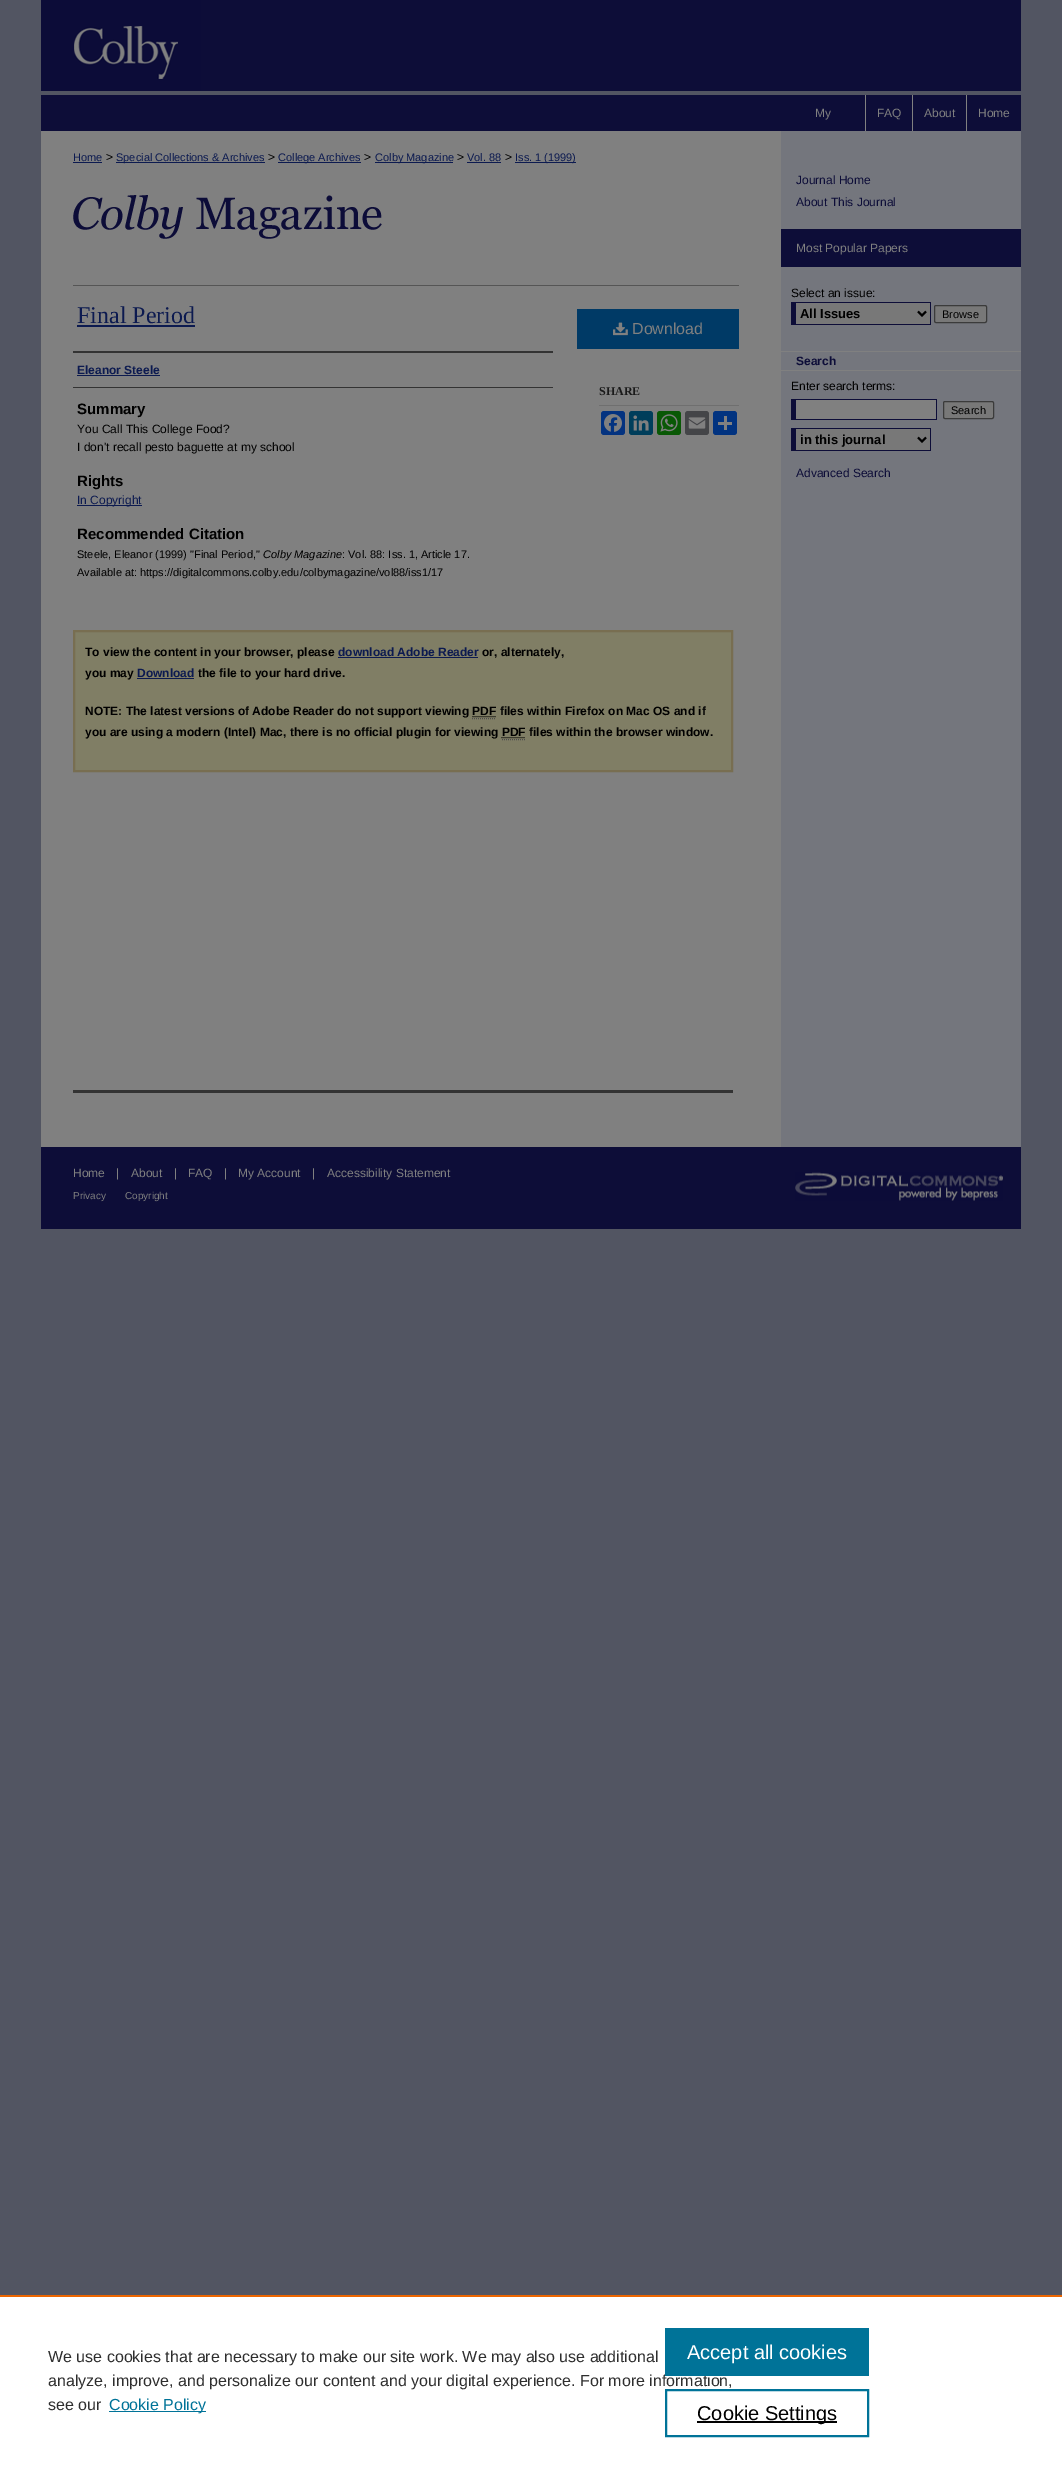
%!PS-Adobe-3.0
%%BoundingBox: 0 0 1062 2465
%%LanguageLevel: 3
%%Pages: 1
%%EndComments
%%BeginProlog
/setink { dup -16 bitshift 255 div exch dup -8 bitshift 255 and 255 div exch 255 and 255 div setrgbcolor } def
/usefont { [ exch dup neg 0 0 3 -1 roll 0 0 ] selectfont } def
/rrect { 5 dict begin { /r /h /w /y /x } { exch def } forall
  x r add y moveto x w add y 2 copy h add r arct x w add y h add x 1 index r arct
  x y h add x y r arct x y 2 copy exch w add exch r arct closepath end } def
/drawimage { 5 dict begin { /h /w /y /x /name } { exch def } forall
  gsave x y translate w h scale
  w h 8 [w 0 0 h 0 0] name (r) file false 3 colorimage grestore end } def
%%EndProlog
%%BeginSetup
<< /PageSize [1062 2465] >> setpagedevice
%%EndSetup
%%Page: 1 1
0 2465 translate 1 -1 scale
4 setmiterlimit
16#525562 setink
0 0 1062 2465 rectfill
16#0D0D38 setink
201 0 820 91 rectfill
(img1.raw) 41 0 160 91 drawimage
41 95 980 36 rectfill
/LiberationSans-Regular 12 usefont
16#808080 setink
815 117 moveto (My) show
865 95 1 36 rectfill
877 117 moveto (FAQ) show
912 95 1 36 rectfill
924 117 moveto (About) show
966 95 1 36 rectfill
978 117 moveto (Home) show
16#74767D setink
781 131 240 1016 rectfill
16#808080 setink
41 131 740 1016 rectfill
/LiberationSans-Regular 11 usefont
16#0C1A50 setink
73 161 moveto (Home) show
73 162 29 1 rectfill
/LiberationSans-Regular 12 usefont
16#000000 setink
106 161 moveto (>) show
16#0C1A50 setink
116 162 149 1 rectfill
/LiberationSans-Regular 11 usefont
116 161 moveto (Special Collections & Archives) show
/LiberationSans-Regular 12 usefont
16#000000 setink
268 161 moveto (>) show
16#0C1A50 setink
278 162 83 1 rectfill
/LiberationSans-Regular 11 usefont
278 161 moveto (College Archives) show
/LiberationSans-Regular 12 usefont
16#000000 setink
364 161 moveto (>) show
16#0C1A50 setink
375 162 78 1 rectfill
/LiberationSans-Regular 11 usefont
375 161 moveto (Colby Magazine) show
/LiberationSans-Regular 12 usefont
16#000000 setink
457 161 moveto (>) show
/LiberationSans-Regular 11 usefont
16#0C1A50 setink
467 161 moveto (Vol. 88) show
467 162 34 1 rectfill
/LiberationSans-Regular 12 usefont
16#000000 setink
505 161 moveto (>) show
16#0C1A50 setink
515 162 61 1 rectfill
/LiberationSans-Regular 11 usefont
515 161 moveto (Iss. 1 \(1999\)) show
(img2.raw) 73 195 309 44 drawimage
16#555555 setink
73 285 666 1 rectfill
/LiberationSerif-Regular 24 usefont
16#0C1A50 setink
77 323 moveto (Final Period) show
[
    [77 325 118 2 16#0C1A50]
    [73 351 480 2 16#333333]
    [73 387 480 1 16#333333]
] { aload pop setink rectfill } forall
/LiberationSans-Bold 12 usefont
16#0C1A50 setink
77 374 moveto (Eleanor Steele) show
77 375 83 1 rectfill
/LiberationSans-Bold 15 usefont
16#000000 setink
77 414 moveto (Summary) show
/LiberationSans-Regular 12 usefont
77 433 moveto (You Call This College Food?) show
77 451 moveto (I don't recall pesto baguette at my school) show
/LiberationSans-Bold 15 usefont
77 486 moveto (Rights) show
16#0C1A50 setink
77 505 65 1 rectfill
/LiberationSans-Regular 12 usefont
77 504 moveto (In Copyright) show
/LiberationSans-Bold 15 usefont
16#000000 setink
77 539 moveto (Recommended Citation) show
/LiberationSans-Regular 11 usefont
77 558 moveto (Steele, Eleanor \(1999\) "Final Period,") show
/LiberationSans-Italic 11 usefont
263 558 moveto (Colby Magazine) show
/LiberationSans-Regular 11 usefont
342 558 moveto (: Vol. 88: Iss. 1, Article 17.) show
77 576 moveto (Available at: https://digitalcommons.colby.edu/colbymagazine/vol88/iss1/17) show
16#003A66 setink
577 309 162 40 rectfill
(img3.raw) 613 322 15 14 drawimage
/LiberationSans-Regular 16 usefont
16#808080 setink
632 334 moveto (Download) show
16#6F6F6F setink
599 405 140 1 rectfill
/LiberationSerif-Bold 12 usefont
16#1A1A1A setink
599 395 moveto (SHARE) show
16#043380 setink
601 411 24 24 3 rrect fill
(img4.raw) 604 414 18 18 drawimage
16#003E5B setink
629 411 24 24 3 rrect fill
(img5.raw) 633 415 16 16 drawimage
16#095805 setink
657 411 24 24 3 rrect fill
(img6.raw) 660 414 18 18 drawimage
16#444548 setink
685 411 24 24 3 rrect fill
(img7.raw) 688 417 18 12 drawimage
16#013380 setink
713 411 24 24 3 rrect fill
[
    [724 416 3 14 16#808080]
    [718 422 14 3 16#808080]
    [73 1090 660 3 16#333333]
] { aload pop setink rectfill } forall
16#807E65 setink
74 631 moveto 732 631 lineto 732 771 lineto 74 771 lineto closepath gsave fill grestore
16#786E51 setink
2 setlinewidth
stroke
/LiberationSans-Bold 12 usefont
16#000000 setink
85 656 moveto (To view the content in your browser, please) show
16#0C1A50 setink
338 656 moveto (download Adobe Reader) show
338 657 140 1 rectfill
16#000000 setink
482 656 moveto (or, alternately,) show
85 677 moveto (you may) show
16#0C1A50 setink
137 677 moveto (Download) show
137 678 57 1 rectfill
16#000000 setink
198 677 moveto (the file to your hard drive.) show
85 715 moveto (NOTE: The latest versions of Adobe Reader do not support viewing PDF files within Firefox on Mac OS and if) show
1 setlinewidth
[1 1] 0 setdash
472.5 716.5 moveto 496.5 716.5 lineto stroke
16#4D4D4D setink
472 718.5 moveto 496 718.5 lineto stroke
16#000000 setink
85 736 moveto (you are using a modern \(Intel\) Mac, there is no official plugin for viewing PDF files within the browser window.) show
501.5 737.5 moveto 525.5 737.5 lineto stroke
16#4D4D4D setink
502 739.5 moveto 526 739.5 lineto stroke
/LiberationSans-Regular 12 usefont
16#0D0D38 setink
796 184 moveto (Journal Home) show
796 206 moveto (About This Journal) show
781 229 240 38 rectfill
16#808080 setink
796 252 moveto (Most Popular Papers) show
16#000000 setink
791 297 moveto (Select an issue:) show
[
    [796 303 134 21 16#787878]
    [791 302 140 1 16#0D0D38]
    [930 302 1 23 16#0D0D38]
    [791 324 140 1 16#0D0D38]
    [791 302 5 23 16#0D0D38]
] { aload pop setink rectfill } forall
16#000000 setink
2 setlinewidth
[] 0 setdash
918 311.5 moveto 922 315.5 lineto 926 311.5 lineto stroke
/LiberationSans-Bold 13 usefont
800 318 moveto (All Issues) show
16#787878 setink
934.5 305.5 52 17 1.5 rrect gsave fill grestore
16#3B3B3B setink
1 setlinewidth
stroke
/LiberationSans-Regular 11 usefont
16#000000 setink
942 318 moveto (Browse) show
16#808080 setink
781 351 240 1 rectfill
781 370 240 1 rectfill
/LiberationSans-Bold 12 usefont
16#0D0D38 setink
796 365 moveto (Search) show
/LiberationSans-Regular 12 usefont
16#000000 setink
791 390 moveto (Enter search terms:) show
[
    [796 400 140 19 16#808080]
    [791 399 146 1 16#0D0D38]
    [936 399 1 21 16#0D0D38]
    [791 419 146 1 16#0D0D38]
    [791 399 5 21 16#0D0D38]
] { aload pop setink rectfill } forall
16#787878 setink
943.5 401.5 50 17 1.5 rrect gsave fill grestore
16#3B3B3B setink
stroke
/LiberationSans-Regular 11 usefont
16#000000 setink
951 414 moveto (Search) show
[
    [796 429 134 21 16#787878]
    [791 428 140 1 16#0D0D38]
    [930 428 1 23 16#0D0D38]
    [791 450 140 1 16#0D0D38]
    [791 428 5 23 16#0D0D38]
] { aload pop setink rectfill } forall
16#000000 setink
2 setlinewidth
918 437.5 moveto 922 441.5 lineto 926 437.5 lineto stroke
/LiberationSans-Bold 13 usefont
800 444 moveto (in this journal) show
/LiberationSans-Regular 12 usefont
16#0D0D38 setink
796 477 moveto (Advanced Search) show
41 1147 980 82 rectfill
16#808080 setink
[
    [(Home) 73 1177]
    [(|) 116 1177]
    [(About) 131 1177]
    [(|) 174 1177]
    [(FAQ) 188 1177]
    [(|) 224 1177]
    [(My Account) 238 1177]
    [(|) 312 1177]
    [(Accessibility Statement) 327 1177]
] { aload pop moveto show } forall
(img8.raw) 795 1172 208 29 drawimage
/LiberationSans-Regular 10 usefont
73 1199 moveto (Privacy) show
125 1199 moveto (Copyright) show
16#FFFFFF setink
0 2297 1062 168 rectfill
16#EB6500 setink
0 2295 1062 2 rectfill
/LiberationSans-Regular 16 usefont
16#2E2E2E setink
[
    [(We use cookies that are necessary to make our site work. We may also use additional) 48 2362]
    [(analyze, improve, and personalize our content and your digital experience. For more information,) 48 2386]
    [(see our) 48 2410]
] { aload pop moveto show } forall
16#007398 setink
109 2411 97 1 rectfill
109 2410 moveto (Cookie Policy) show
665 2328 204 48 rectfill
/LiberationSans-Regular 20 usefont
16#FFFFFF setink
687 2359 moveto (Accept all cookies) show
16#007398 setink
666 2390 202 46 rectstroke
16#000000 setink
697 2421 140 2 rectfill
697 2420 moveto (Cookie Settings) show
showpage
%%EOF
